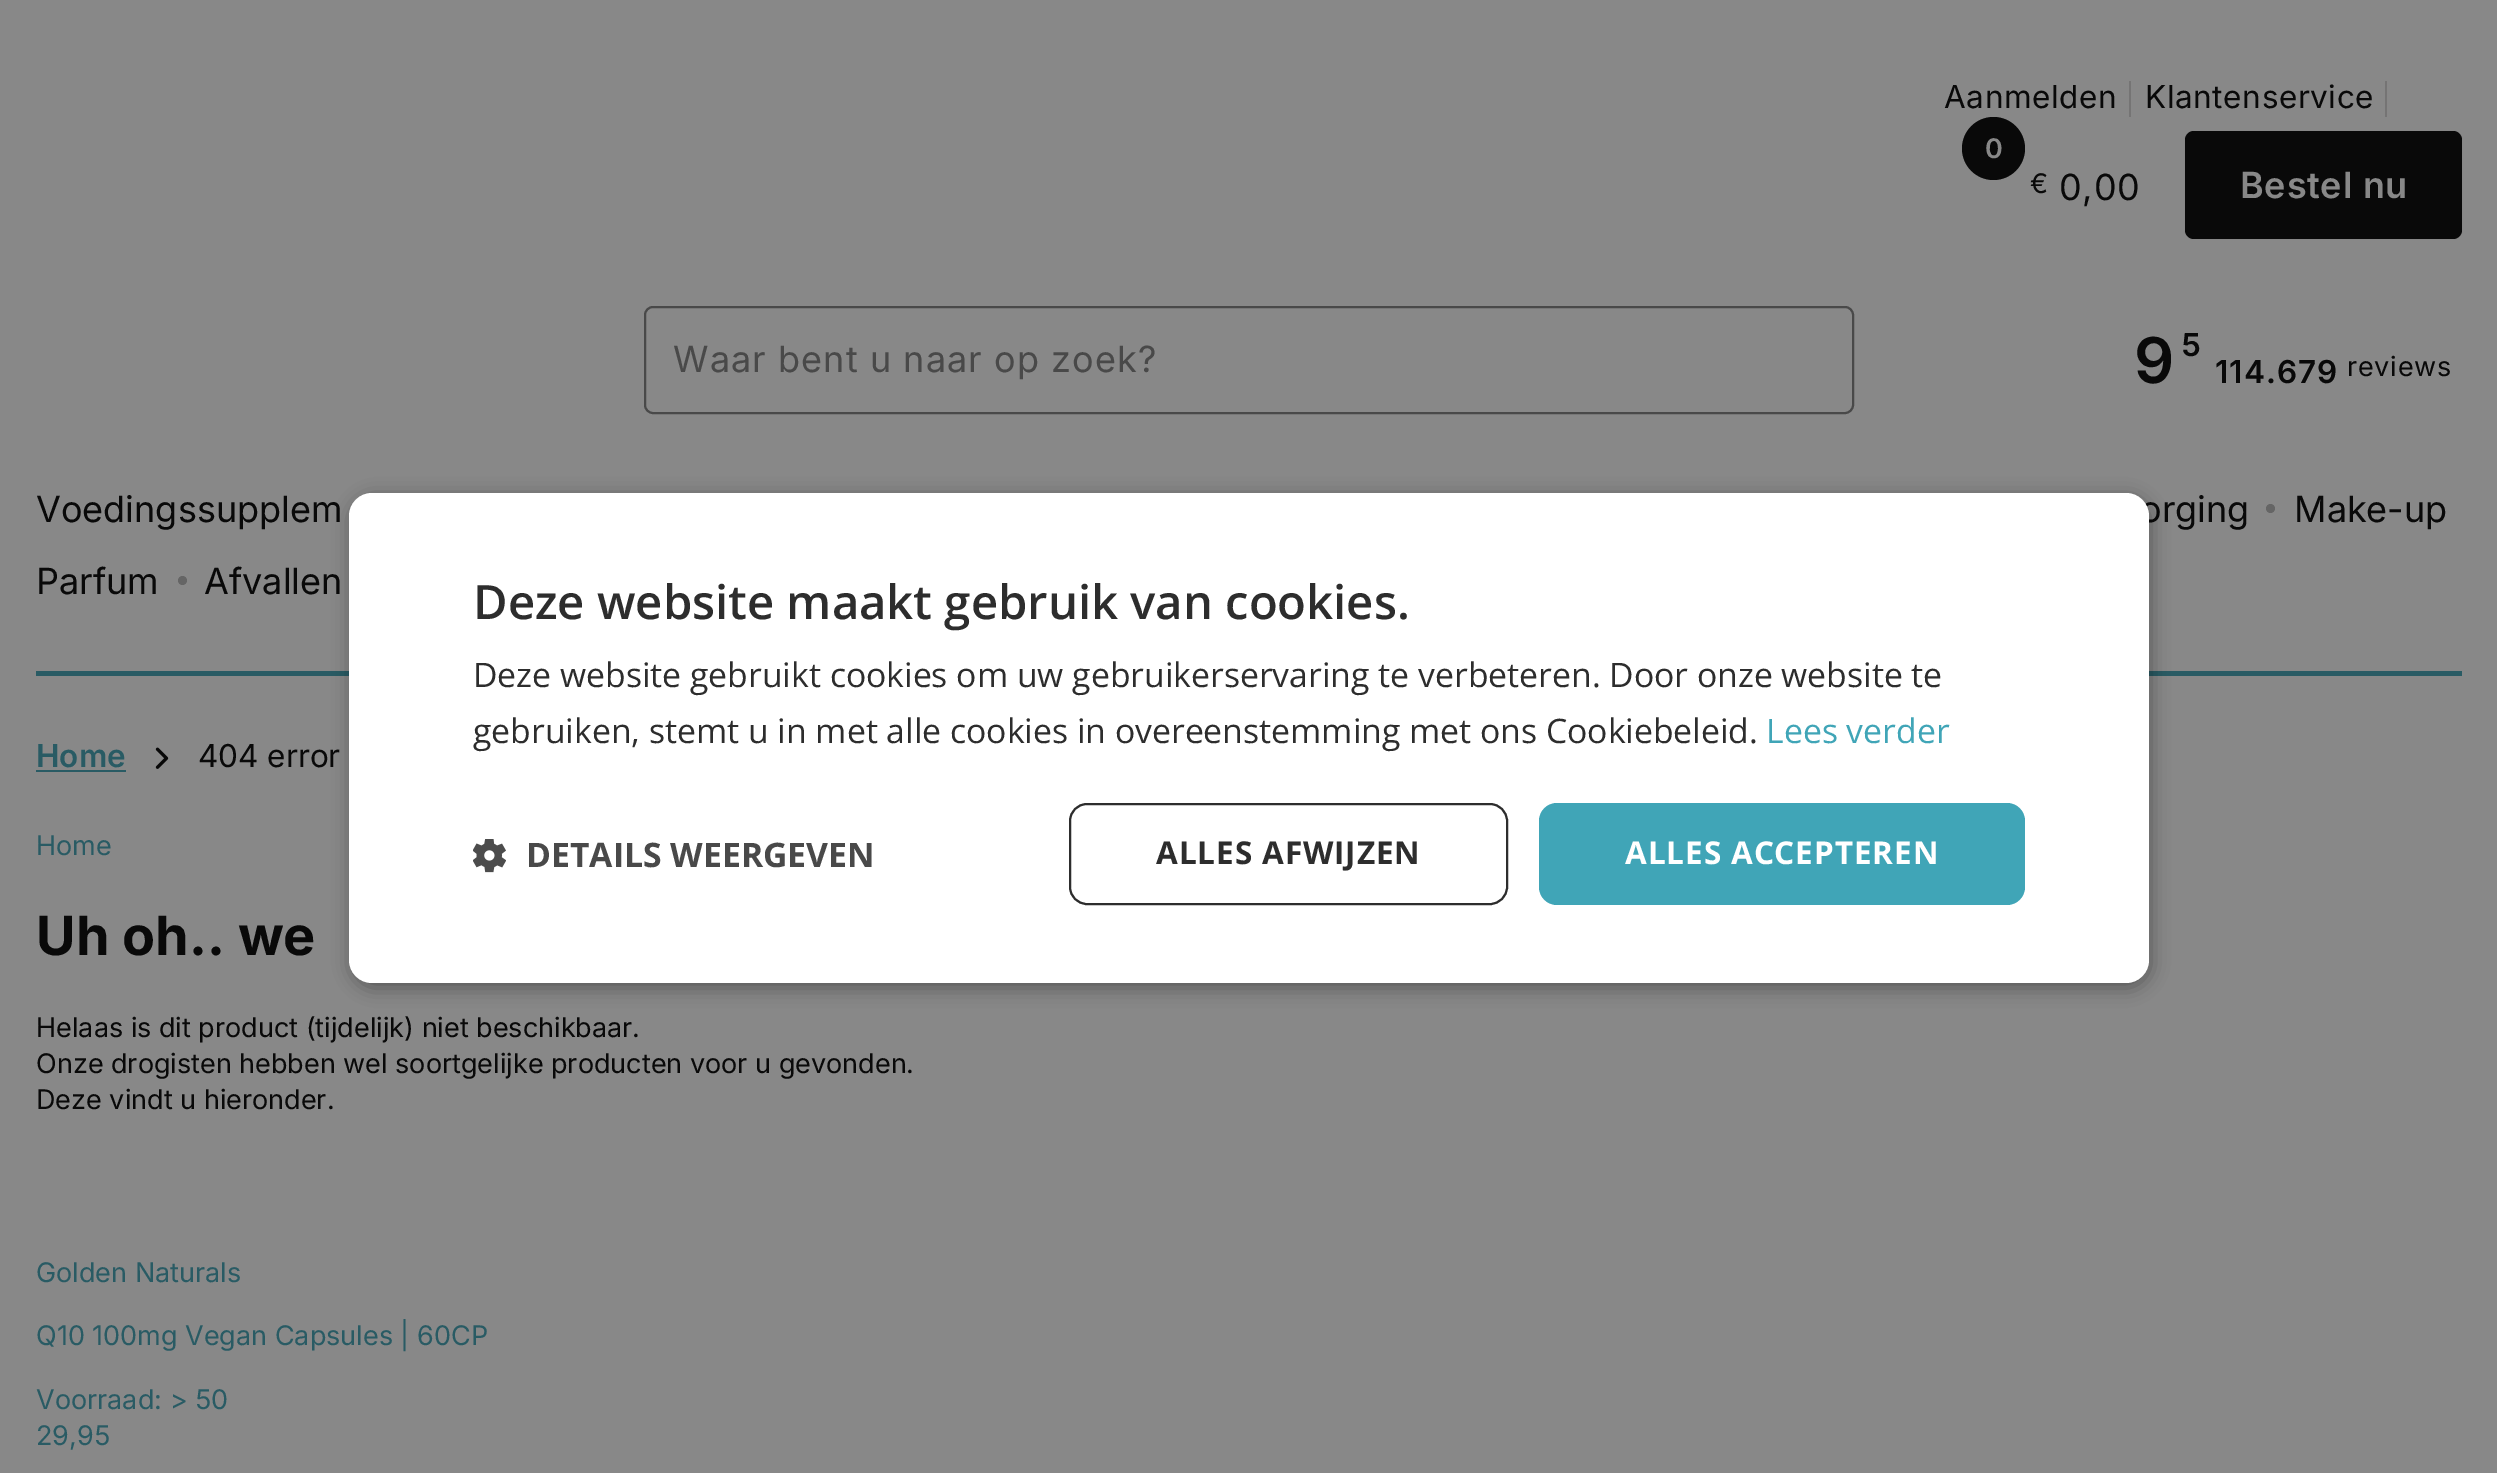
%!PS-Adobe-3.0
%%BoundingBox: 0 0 2497 1473
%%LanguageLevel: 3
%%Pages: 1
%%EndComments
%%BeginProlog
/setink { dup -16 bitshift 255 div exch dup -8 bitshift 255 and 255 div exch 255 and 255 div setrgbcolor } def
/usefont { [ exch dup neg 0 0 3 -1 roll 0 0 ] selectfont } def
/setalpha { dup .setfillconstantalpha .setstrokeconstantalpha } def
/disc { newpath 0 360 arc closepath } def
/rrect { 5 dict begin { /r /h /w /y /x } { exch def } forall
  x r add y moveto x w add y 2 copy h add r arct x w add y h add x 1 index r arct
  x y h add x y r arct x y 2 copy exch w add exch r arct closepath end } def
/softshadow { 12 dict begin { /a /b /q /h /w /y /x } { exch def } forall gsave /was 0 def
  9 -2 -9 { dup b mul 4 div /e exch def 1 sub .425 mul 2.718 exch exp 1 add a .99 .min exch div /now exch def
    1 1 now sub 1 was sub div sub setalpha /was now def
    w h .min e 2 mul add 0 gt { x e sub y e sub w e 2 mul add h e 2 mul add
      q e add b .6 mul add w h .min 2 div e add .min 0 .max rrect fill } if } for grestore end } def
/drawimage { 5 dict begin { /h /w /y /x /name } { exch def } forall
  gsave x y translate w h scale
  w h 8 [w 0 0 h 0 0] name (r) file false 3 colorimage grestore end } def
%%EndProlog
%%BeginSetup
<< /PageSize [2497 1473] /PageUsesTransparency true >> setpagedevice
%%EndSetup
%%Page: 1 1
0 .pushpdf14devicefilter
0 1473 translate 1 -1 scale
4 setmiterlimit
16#888888 setink
0 0 2497 1473 rectfill
/Inter-Regular 31.5 usefont
16#090909 setink
1944 108 moveto 0.6 0 (Aanmelden) ashow
16#757474 setink
2129 81 2 36 rectfill
16#090909 setink
2145 108 moveto 0.6 0 (Klantenservice) ashow
16#757474 setink
2385 81 2 36 rectfill
16#090909 setink
1993.5 148.5 31.5 disc fill
/Inter-SemiBold 27 usefont
16#888888 setink
1985 158 moveto (0) show
/Inter-Regular 27 usefont
16#090909 setink
2030 193 moveto 0.75 0 (€) ashow
/Inter-Regular 36 usefont
2059 200 moveto 0.75 0 (0,00) ashow
2185 131 277 108 9 1 0.1 softshadow
2185 131 277 108 9 rrect fill
/Inter-SemiBold 36 usefont
16#888888 setink
2240 198 moveto 0.75 0 (Bestel nu) ashow
16#494949 setink
2 setlinewidth
645 307 1208 106 8 rrect stroke
/Inter-Regular 36 usefont
673 372 moveto 1.1 0 (Waar bent u naar op zoek?) ashow
/Inter-SemiBold 63 usefont
16#090909 setink
2134 383 moveto 2 0 (9) ashow
/Inter-SemiBold 31.5 usefont
2181 356 moveto 1 0 (5) ashow
2215 383 moveto 1 0 (114.679) ashow
/Inter-Regular 27 usefont
2347 376 moveto 0.75 0 (reviews) ashow
16#295B64 setink
36 671 2426 5 rectfill
/Inter-Regular 36 usefont
16#090909 setink
36 522 moveto (Voedingssupplem) show
2140 522 moveto (orging) show
16#656565 setink
2270.5 508.5 4.5 disc fill
16#090909 setink
2294 522 moveto (Make-up) show
36 594 moveto (Parfum) show
16#656565 setink
182.5 580.5 4.5 disc fill
16#090909 setink
204 594 moveto (Afvallen) show
16#000000 setink
351 497 1800 491 23 9 0.35 softshadow
16#FFFFFF setink
349 493 1800 490 23 rrect fill
/OpenSans-SemiBold 47.25 usefont
16#2D2D2D setink
473 619 moveto (Deze website maakt gebruik van cookies.) show
/OpenSans-Regular 33.75 usefont
473 687 moveto (Deze website gebruikt cookies om uw gebruikerservaring te verbeteren. Door onze website te) show
473 743 moveto (gebruiken, stemt u in met alle cookies in overeenstemming met ons Cookiebeleid.) show
16#40A5B7 setink
1766 743 moveto (Lees verder) show
(img1.raw) 473 839 33 34 drawimage
/OpenSans-Bold 33.75 usefont
16#494949 setink
526 867 moveto (DETAILS WEERGEVEN) show
16#2D2D2D setink
1070 804 437 100 17 rrect stroke
/OpenSans-Bold 31.5 usefont
1156 864 moveto 0.9 0 (ALLES AFWIJZEN) ashow
16#40A5B7 setink
1539 803 486 102 18 rrect fill
16#FFFFFF setink
1625 864 moveto 0.9 0 (ALLES ACCEPTEREN) ashow
/Inter-SemiBold 31.5 usefont
16#295B64 setink
36 767 moveto (Home) show
36 770 90 2 rectfill
(img2.raw) 155 747 14 22 drawimage
/Inter-Regular 31.5 usefont
16#090909 setink
198 767 moveto (404 error) show
/Inter-Regular 27 usefont
16#295B64 setink
36 855 moveto (Home) show
/Inter-Bold 54 usefont
16#090909 setink
36 955 moveto (Uh oh.. we) show
/Inter-Regular 27 usefont
[
    [(Helaas is dit product \(tijdelijk\) niet beschikbaar.) 36 1037]
    [(Onze drogisten hebben wel soortgelijke producten voor u gevonden.) 36 1073]
    [(Deze vindt u hieronder.) 36 1109]
] { aload pop moveto show } forall
16#295B64 setink
[
    [(Golden Naturals) 36 1282]
    [(Q10 100mg Vegan Capsules | 60CP) 36 1345]
    [(Voorraad: > 50) 36 1409]
    [(29,95) 36 1445]
] { aload pop moveto show } forall
.poppdf14devicefilter showpage
%%EOF
